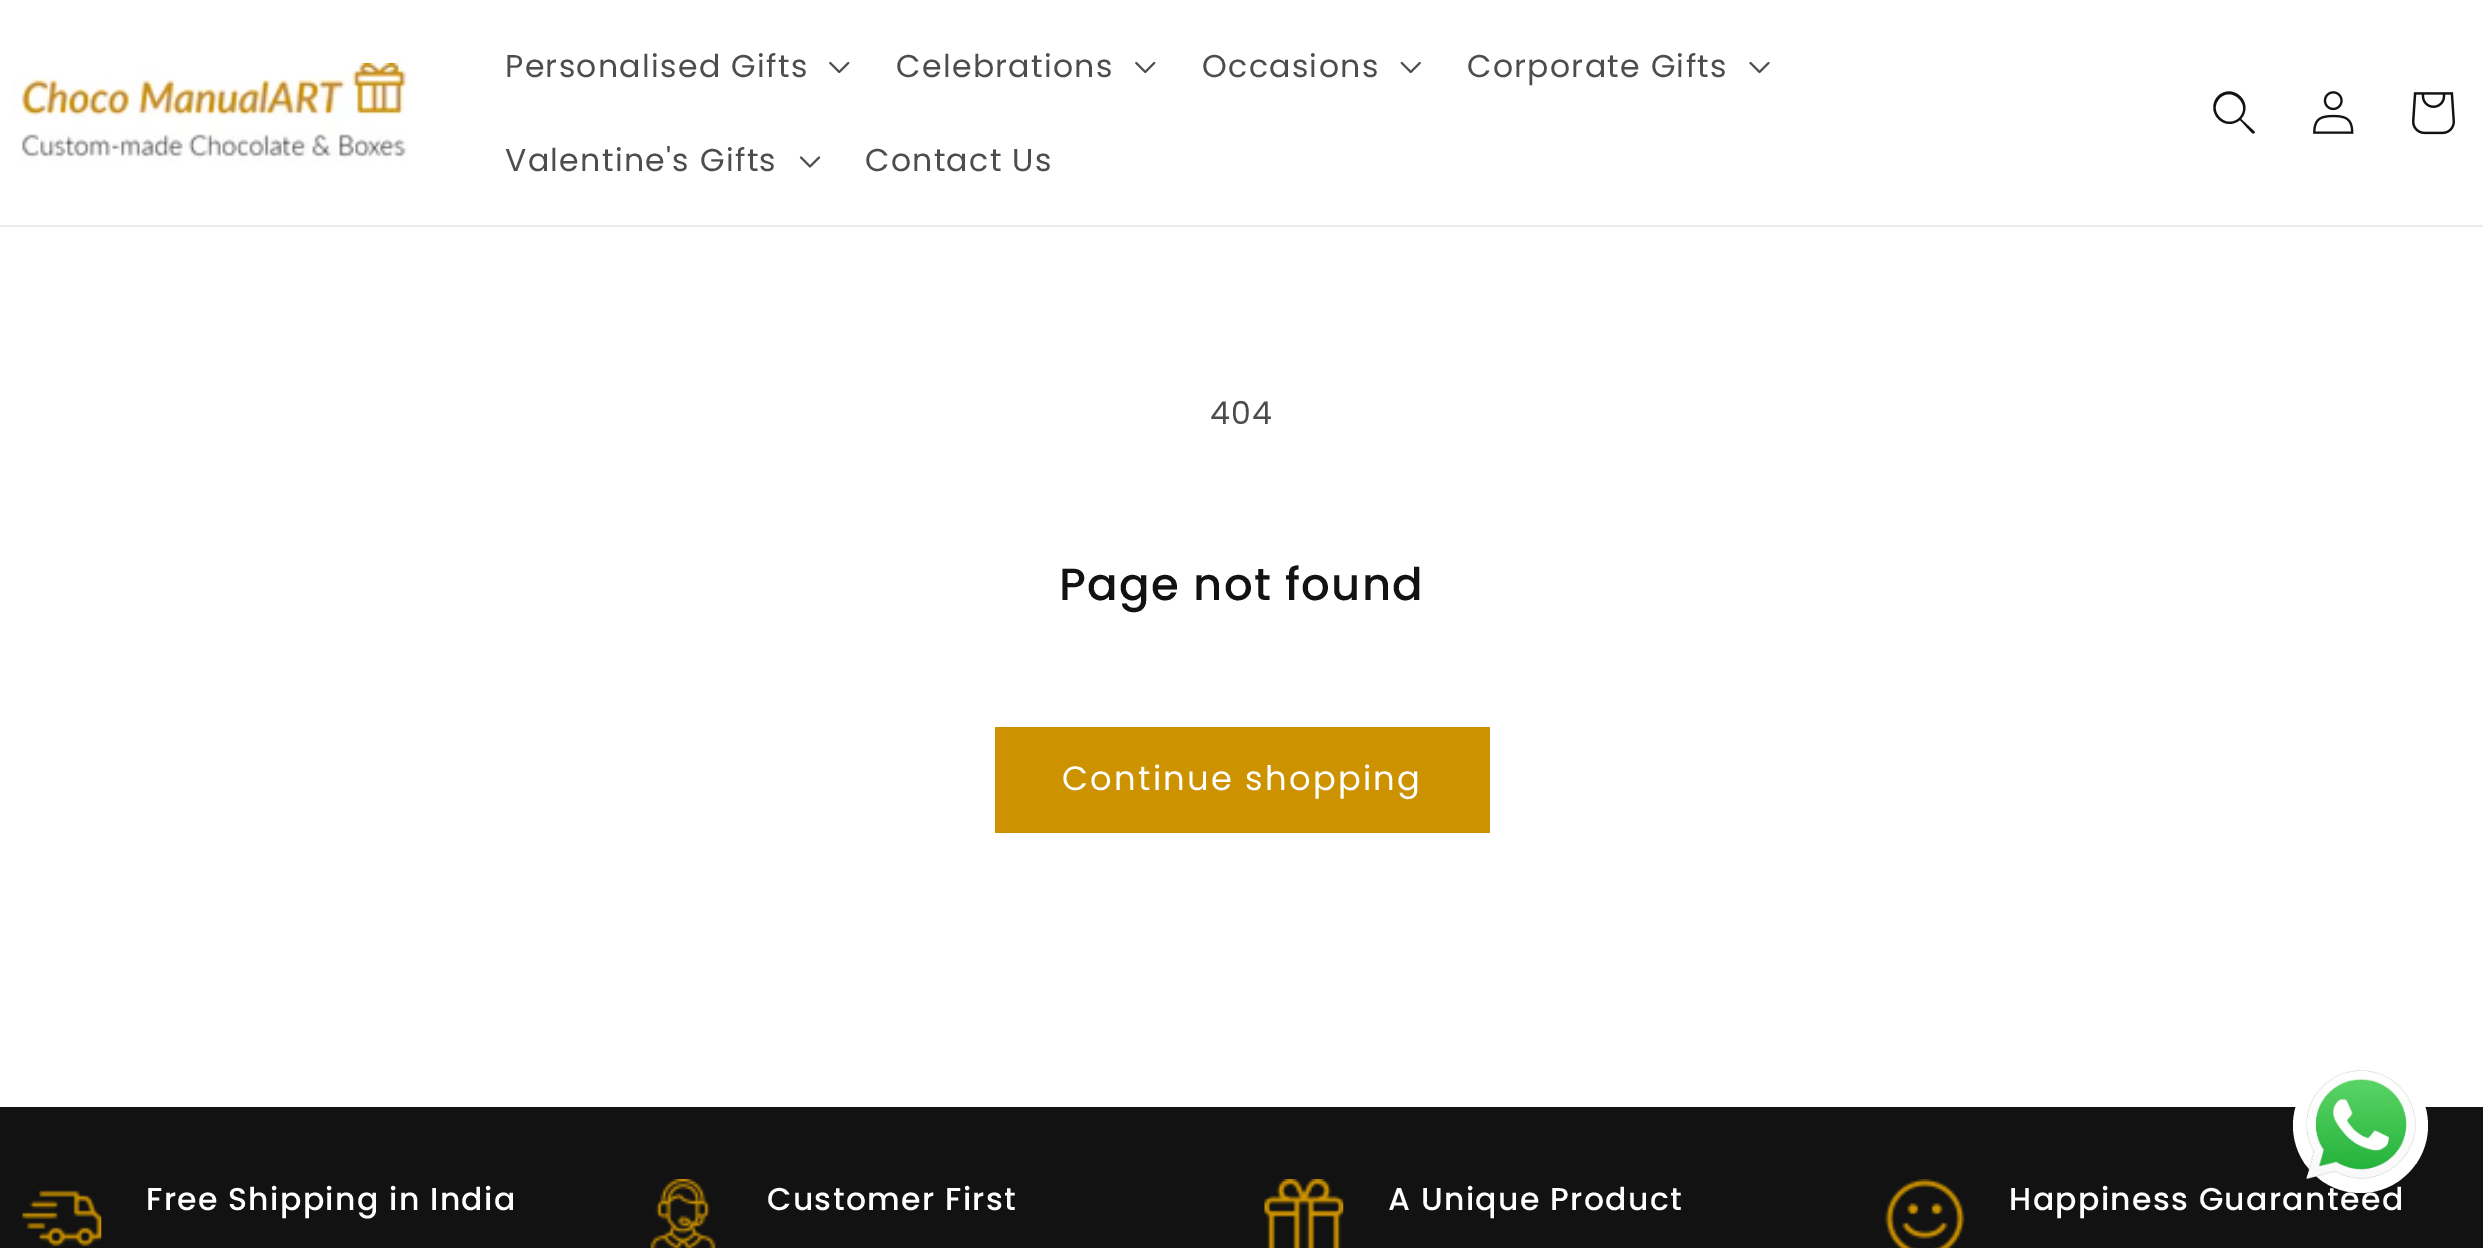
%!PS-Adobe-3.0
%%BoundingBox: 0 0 2483 1248
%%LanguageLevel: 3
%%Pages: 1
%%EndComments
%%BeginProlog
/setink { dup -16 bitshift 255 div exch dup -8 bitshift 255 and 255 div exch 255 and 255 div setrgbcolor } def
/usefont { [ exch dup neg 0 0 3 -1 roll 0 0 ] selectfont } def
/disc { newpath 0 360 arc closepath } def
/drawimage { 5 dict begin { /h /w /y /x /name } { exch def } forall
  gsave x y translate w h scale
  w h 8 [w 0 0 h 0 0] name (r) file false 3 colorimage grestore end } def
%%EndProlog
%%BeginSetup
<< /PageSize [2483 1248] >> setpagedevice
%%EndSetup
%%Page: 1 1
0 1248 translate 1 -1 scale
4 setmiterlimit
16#FFFFFF setink
0 0 2483 1248 rectfill
16#ECECEC setink
0 225 2483 2 rectfill
(img1.raw) 11 63 398 99 drawimage
/Poppins-Regular 31.5 usefont
16#4D4D4D setink
505 77 moveto 1.35 0 (Personalised Gifts) ashow
(img2.raw) 829 61 21 13 drawimage
896 77 moveto 1.35 0 (Celebrations) ashow
(img2.raw) 1135 61 21 13 drawimage
1202 77 moveto 1.35 0 (Occasions) ashow
(img3.raw) 1400 61 21 13 drawimage
1467 77 moveto 1.35 0 (Corporate Gifts) ashow
(img4.raw) 1749 61 21 13 drawimage
505 171 moveto 1.35 0 (Valentine's Gifts) ashow
(img5.raw) 799 156 22 12 drawimage
865 171 moveto 1.35 0 (Contact Us) ashow
16#121212 setink
2239 118 moveto 2226 130 2207 111 2220 98 curveto 2232 86 2252 105 2239 118 curveto 2240 120 moveto 2224 133 2204 111 2218 96 curveto 2233 82 2255 103 2241 119 curveto 2255 132 lineto 2255 133 2253 134 2252 133 curveto closepath eofill
(img6.raw) 2313 91 41 43 drawimage
(img7.raw) 2412 92 43 43 drawimage
16#4D4D4D setink
1210 424 moveto 1.35 0 (404) ashow
/Poppins-Medium 45 usefont
16#121212 setink
1059 600 moveto 1.35 0 (Page not found) ashow
16#CC9200 setink
995 727 495 106 rectfill
/Poppins-Regular 33.75 usefont
16#FFFFFF setink
1062 790 moveto 2.25 0 (Continue shopping) ashow
16#121212 setink
0 1107 2483 141 rectfill
16#FFFFFF setink
2360.5 1125.5 67.5 disc fill
(img8.raw) 2306 1070 110 109 drawimage
(img9.raw) 22 1190 80 57 drawimage
/Poppins-Medium 31.5 usefont
146 1210 moveto 1.35 0 (Free Shipping in India) ashow
(img10.raw) 650 1179 66 69 drawimage
767 1210 moveto 1.35 0 (Customer First) ashow
(img11.raw) 1264 1179 80 69 drawimage
1388 1210 moveto 1.35 0 (A Unique Product) ashow
(img12.raw) 1885 1179 80 69 drawimage
2009 1210 moveto 1.35 0 (Happiness Guaranteed) ashow
showpage
%%EOF
